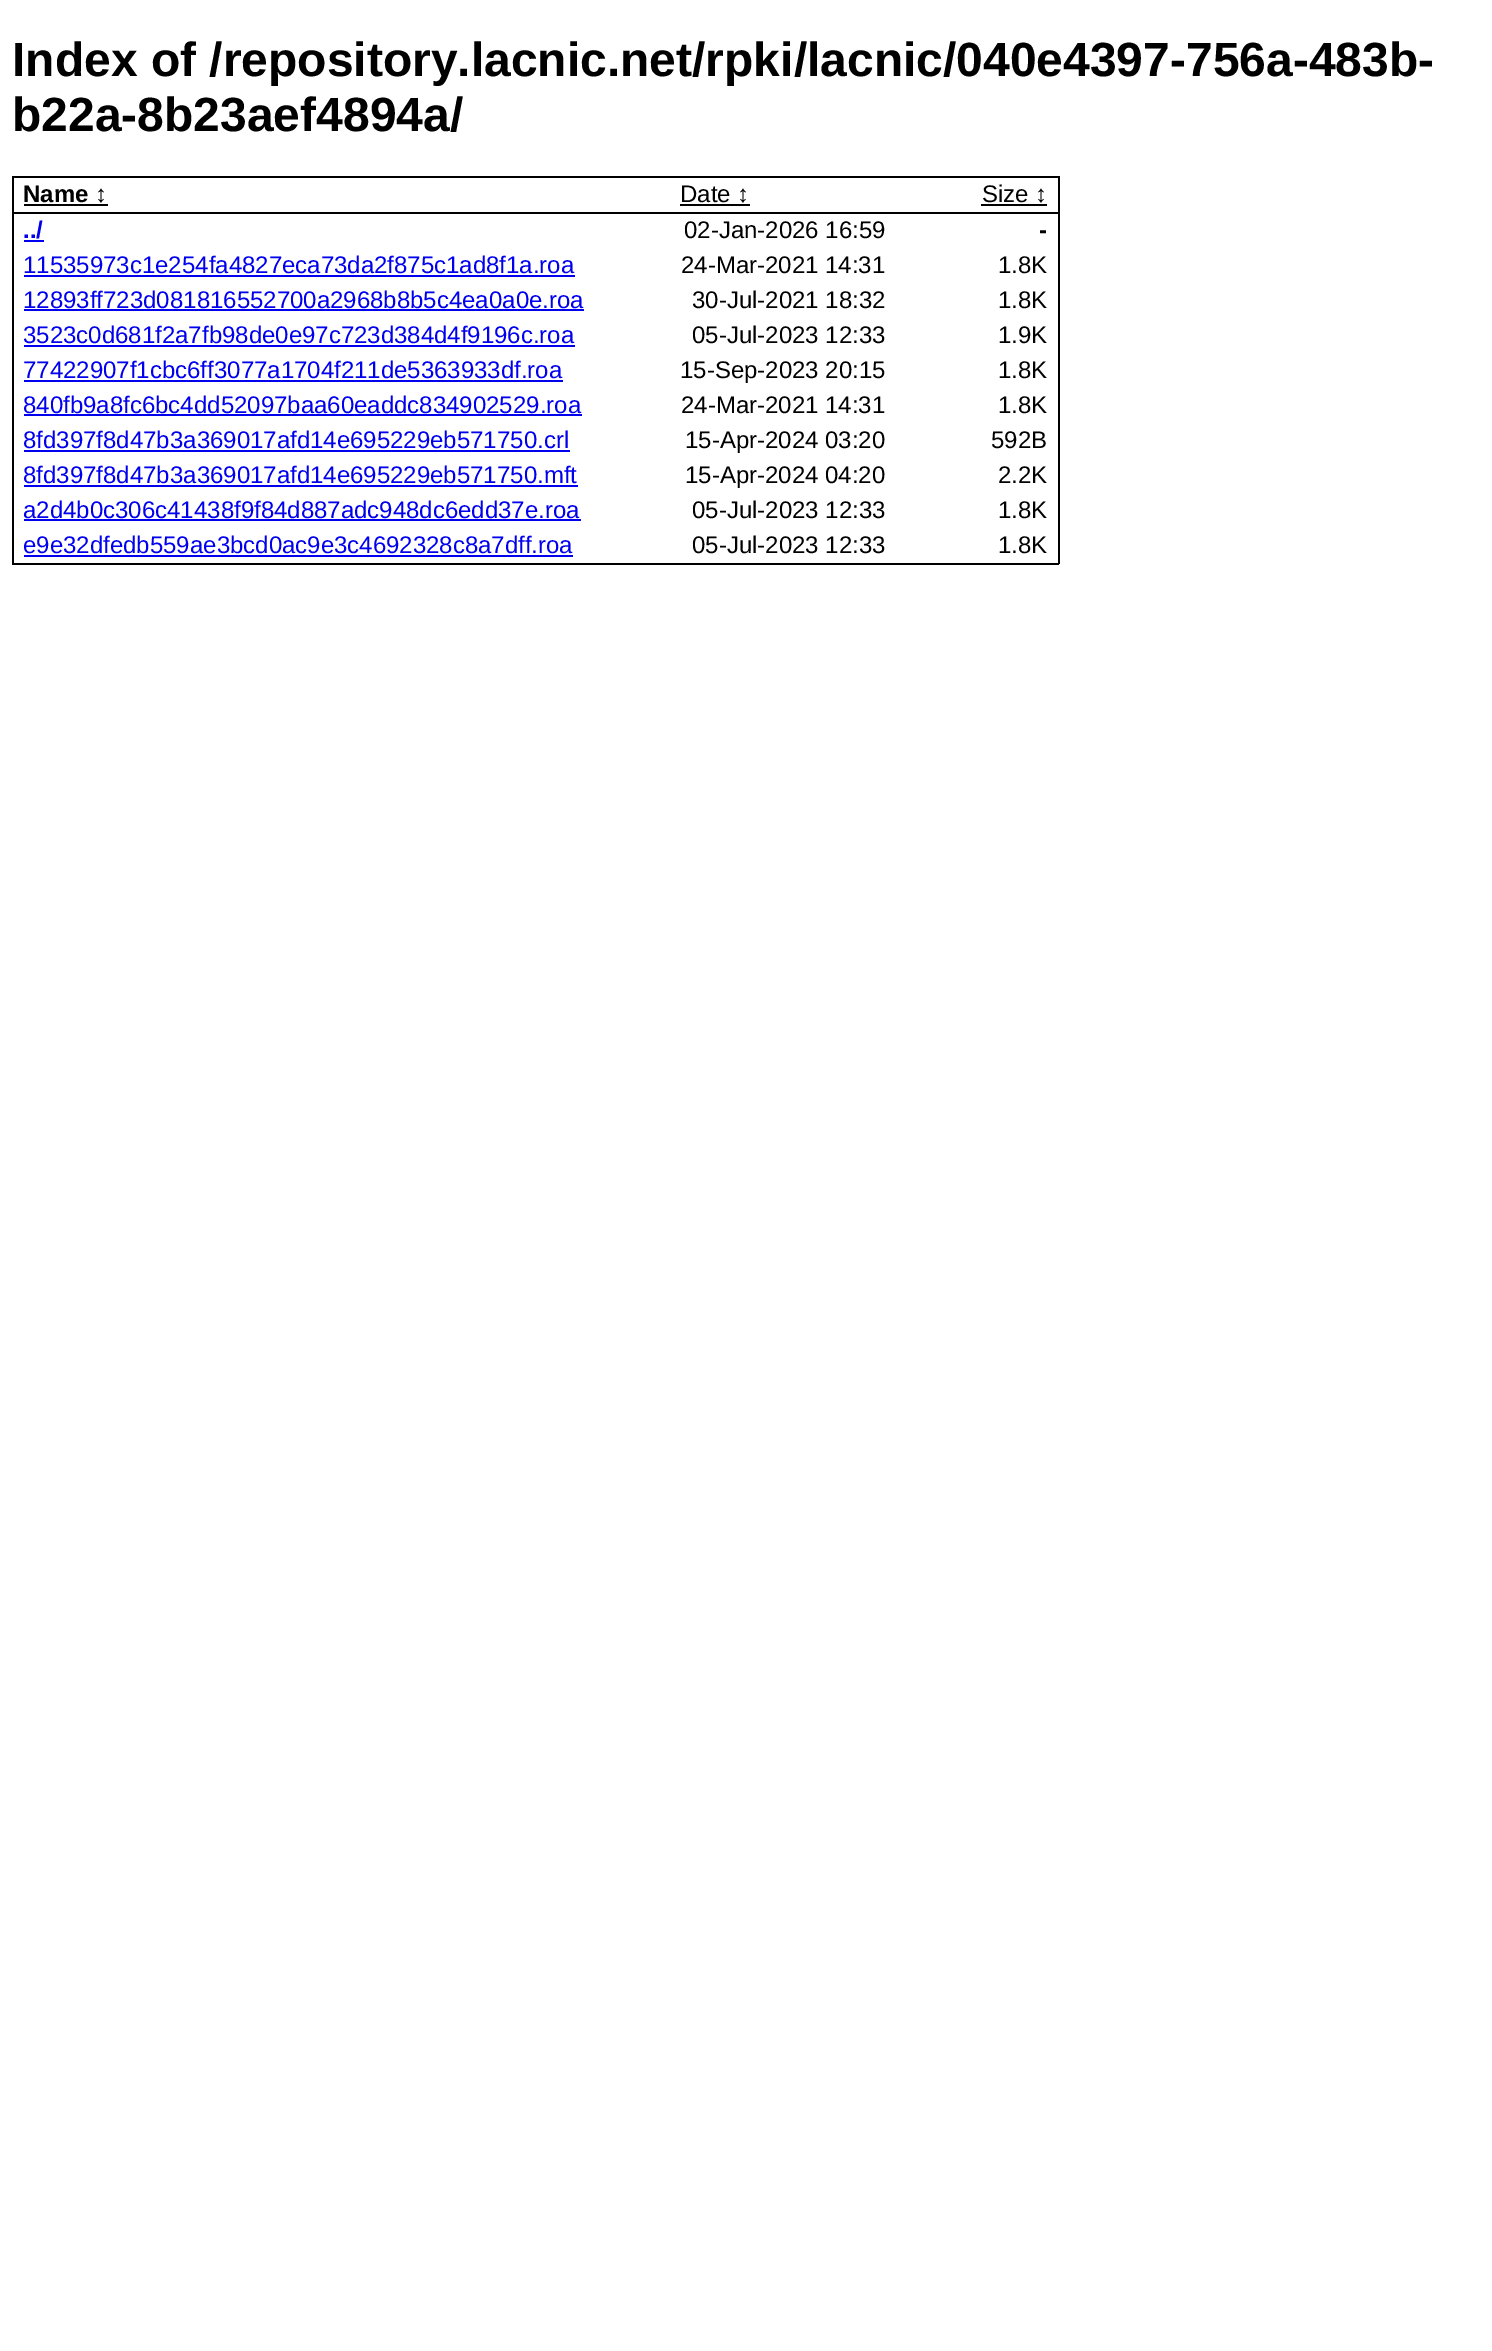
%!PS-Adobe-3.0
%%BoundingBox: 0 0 1492 2351
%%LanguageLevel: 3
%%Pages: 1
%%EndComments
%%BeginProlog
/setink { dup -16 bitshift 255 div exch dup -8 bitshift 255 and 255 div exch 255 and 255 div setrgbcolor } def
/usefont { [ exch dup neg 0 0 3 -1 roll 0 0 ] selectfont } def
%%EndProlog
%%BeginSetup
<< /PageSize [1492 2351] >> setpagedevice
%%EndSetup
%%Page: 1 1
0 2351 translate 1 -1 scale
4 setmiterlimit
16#FFFFFF setink
0 0 1492 2351 rectfill
/LiberationSans-Bold 48 usefont
16#000000 setink
12 76 moveto (Index of /repository.lacnic.net/rpki/lacnic/040e4397-756a-483b-) show
12 131 moveto (b22a-8b23aef4894a/) show
[
    [12 176 1047 2 16#000000]
    [1058 176 2 388 16#000000]
    [12 563 1047 2 16#000000]
    [12 176 2 388 16#000000]
] { aload pop setink rectfill } forall
/LiberationSans-Bold 24 usefont
23 202 moveto (Name ↕) show
24 204 84 2 rectfill
/LiberationSans-Regular 24 usefont
680 202 moveto (Date ↕) show
680 204 70 2 rectfill
12 212 1047 2 rectfill
982 202 moveto (Size ↕) show
981 204 66 2 rectfill
/LiberationSans-Bold 24 usefont
16#0000EE setink
23 238 moveto (../) show
24 240 20 2 rectfill
/LiberationSans-Regular 24 usefont
16#000000 setink
684 238 moveto (02-Jan-2026 16:59) show
/LiberationSans-Bold 24 usefont
1039 238 moveto (-) show
/LiberationSans-Regular 24 usefont
16#0000EE setink
23 273 moveto (11535973c1e254fa4827eca73da2f875c1ad8f1a.roa) show
24 275 551 2 rectfill
16#000000 setink
681 273 moveto (24-Mar-2021 14:31) show
998 273 moveto (1.8K) show
16#0000EE setink
23 308 moveto (12893ff723d081816552700a2968b8b5c4ea0a0e.roa) show
24 309 560 2 rectfill
16#000000 setink
692 308 moveto (30-Jul-2021 18:32) show
998 308 moveto (1.8K) show
16#0000EE setink
23 343 moveto (3523c0d681f2a7fb98de0e97c723d384d4f9196c.roa) show
24 345 551 2 rectfill
16#000000 setink
692 343 moveto (05-Jul-2023 12:33) show
998 343 moveto (1.9K) show
16#0000EE setink
23 378 moveto (77422907f1cbc6ff3077a1704f211de5363933df.roa) show
24 380 539 2 rectfill
16#000000 setink
680 378 moveto (15-Sep-2023 20:15) show
998 378 moveto (1.8K) show
16#0000EE setink
23 413 moveto (840fb9a8fc6bc4dd52097baa60eaddc834902529.roa) show
24 414 558 2 rectfill
16#000000 setink
681 413 moveto (24-Mar-2021 14:31) show
998 413 moveto (1.8K) show
16#0000EE setink
23 448 moveto (8fd397f8d47b3a369017afd14e695229eb571750.crl) show
24 450 546 2 rectfill
16#000000 setink
685 448 moveto (15-Apr-2024 03:20) show
991 448 moveto (592B) show
16#0000EE setink
23 483 moveto (8fd397f8d47b3a369017afd14e695229eb571750.mft) show
24 485 554 2 rectfill
16#000000 setink
685 483 moveto (15-Apr-2024 04:20) show
998 483 moveto (2.2K) show
16#0000EE setink
23 518 moveto (a2d4b0c306c41438f9f84d887adc948dc6edd37e.roa) show
24 519 557 2 rectfill
16#000000 setink
692 518 moveto (05-Jul-2023 12:33) show
998 518 moveto (1.8K) show
16#0000EE setink
23 553 moveto (e9e32dfedb559ae3bcd0ac9e3c4692328c8a7dff.roa) show
24 555 549 2 rectfill
16#000000 setink
692 553 moveto (05-Jul-2023 12:33) show
998 553 moveto (1.8K) show
showpage
%%EOF
